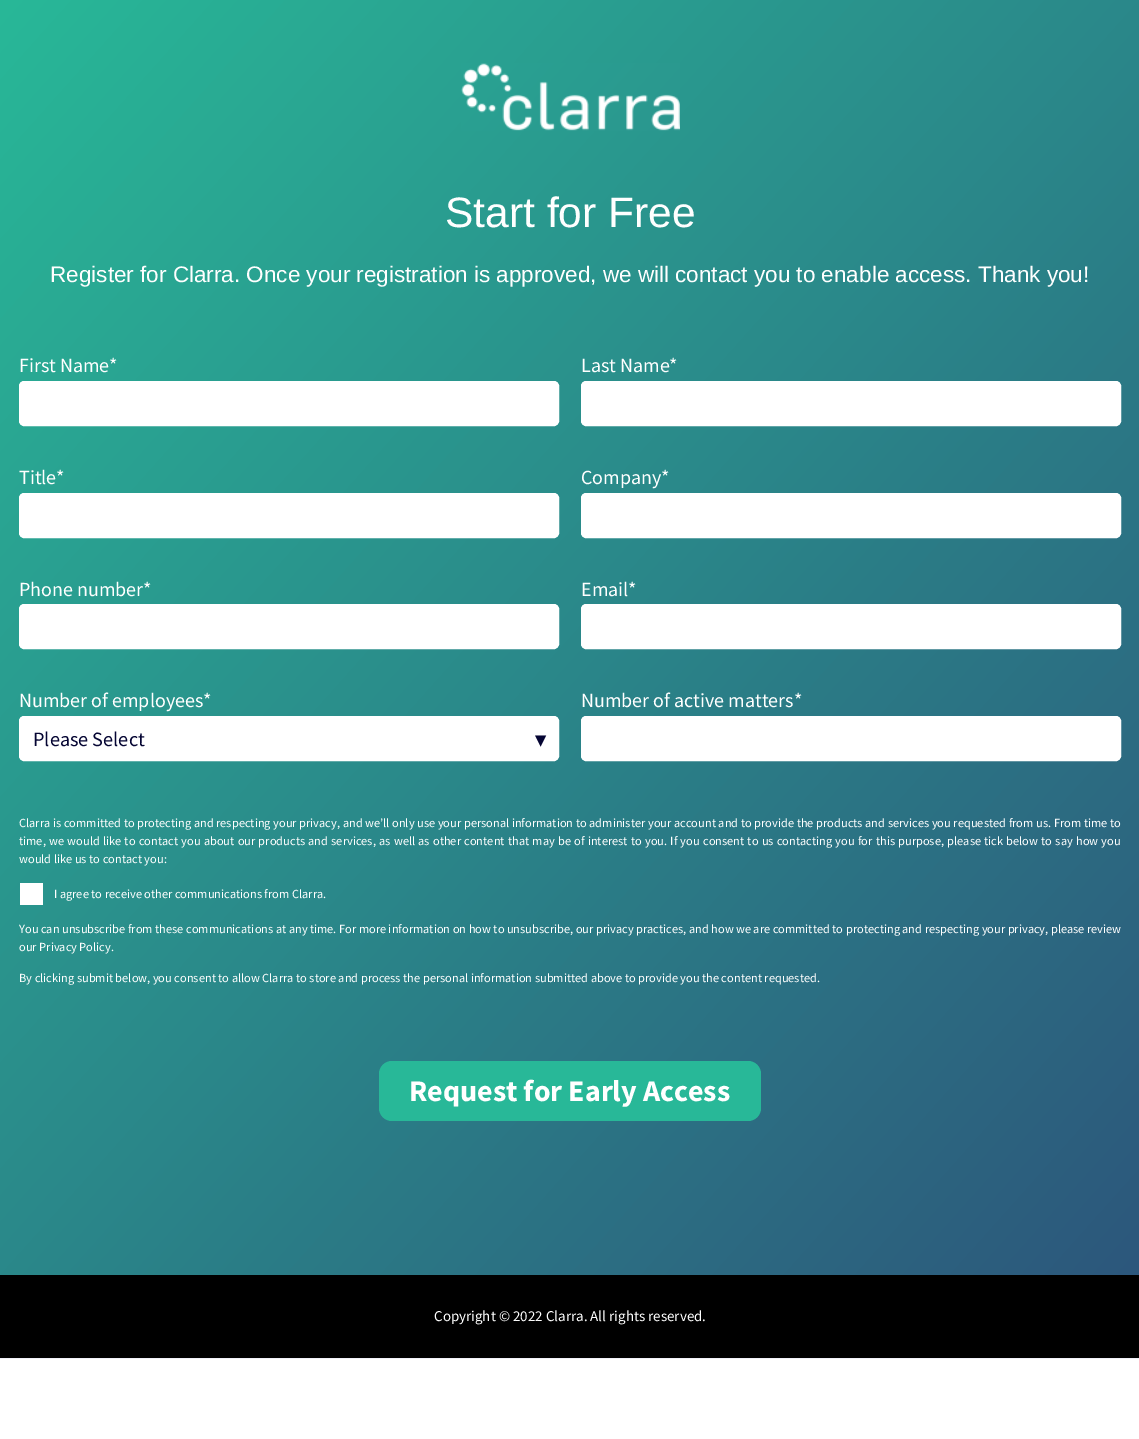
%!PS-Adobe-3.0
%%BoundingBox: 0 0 1139 1439
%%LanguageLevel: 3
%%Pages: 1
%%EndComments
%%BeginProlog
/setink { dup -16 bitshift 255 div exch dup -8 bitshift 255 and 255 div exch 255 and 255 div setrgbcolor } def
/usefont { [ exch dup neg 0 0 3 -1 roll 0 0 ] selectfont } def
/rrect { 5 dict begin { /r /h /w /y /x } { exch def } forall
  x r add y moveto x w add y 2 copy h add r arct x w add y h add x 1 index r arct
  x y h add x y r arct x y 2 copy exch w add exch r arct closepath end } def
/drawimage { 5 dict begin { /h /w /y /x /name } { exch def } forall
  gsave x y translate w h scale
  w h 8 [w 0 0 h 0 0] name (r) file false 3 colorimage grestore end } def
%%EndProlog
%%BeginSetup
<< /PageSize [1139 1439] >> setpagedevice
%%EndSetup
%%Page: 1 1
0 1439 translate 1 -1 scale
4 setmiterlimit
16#FFFFFF setink
0 0 1139 1439 rectfill
gsave 0 0 moveto 1139 0 lineto 1139 1275 lineto 0 1275 lineto closepath clip newpath
<< /ShadingType 2 /ColorSpace /DeviceRGB /Coords [-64 71 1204 1204] /Extend [true true] /Function << /FunctionType 2 /Domain [0 1] /C0 [0.157 0.722 0.596] /C1 [0.176 0.341 0.486] /N 1 >> >> shfill grestore
(img1.raw) 461 63 219 68 drawimage
/LiberationSans-Regular 42.5 usefont
445 227 moveto (Start for Free) show
/LiberationSans-Regular 22.5 usefont
50 282 moveto (Register for Clarra. Once your registration is approved, we will contact you to enable access. Thank you!) show
/SourceSansPro-Regular 20 usefont
19 372 moveto (First Name*) show
19.5 381.5 539 44 4.5 rrect gsave fill grestore
stroke
581 372 moveto (Last Name*) show
581.5 381.5 539 44 4.5 rrect gsave fill grestore
stroke
19 484 moveto (Title*) show
19.5 493.5 539 44 4.5 rrect gsave fill grestore
stroke
581 484 moveto (Company*) show
581.5 493.5 539 44 4.5 rrect gsave fill grestore
stroke
19 596 moveto (Phone number*) show
19.5 604.5 539 44 4.5 rrect gsave fill grestore
stroke
581 596 moveto (Email*) show
581.5 604.5 539 44 4.5 rrect gsave fill grestore
stroke
19 707 moveto (Number of employees*) show
19.5 716.5 539 44 4.5 rrect gsave fill grestore
stroke
/SourceSansPro-Regular 20.25 usefont
16#050533 setink
33 746 moveto (Please Select) show
/DejaVuSans-Regular 22.5 usefont
535 747 moveto (▾) show
/SourceSansPro-Regular 20 usefont
16#FFFFFF setink
581 707 moveto (Number of active matters*) show
581.5 716.5 539 44 4.5 rrect gsave fill grestore
stroke
/SourceSansPro-Regular 12.38 usefont
19 827 moveto 0.1 0 32 (Clarra is committed to protecting and respecting your privacy, and we’ll only use your personal information to administer your account and to provide the products and services you requested from us. From time to) widthshow
19 845 moveto 0.75 0 32 (time, we would like to contact you about our products and services, as well as other content that may be of interest to you. If you consent to us contacting you for this purpose, please tick below to say how you) widthshow
19 863 moveto (would like us to contact you:) show
20 883 23 22 rectfill
[
    [(I agree to receive other communications from Clarra.) 54 898]
    [(You can unsubscribe from these communications at any time. For more information on how to unsubscribe, our privacy practices, and how we are committed to protecting and respecting your privacy, please review) 19 933]
    [(our Privacy Policy.) 19 951]
    [(By clicking submit below, you consent to allow Clarra to store and process the personal information submitted above to provide you the content requested.) 19 982]
] { aload pop moveto show } forall
16#28B898 setink
379 1061 382 60 13 rrect fill
/SourceSansPro-Bold 30 usefont
16#FFFFFF setink
409 1101 moveto (Request for Early Access) show
16#000000 setink
0 1275 1139 83 rectfill
/SourceSansPro-Regular 15 usefont
16#FFFFFF setink
434 1321 moveto (Copyright © 2022 Clarra. All rights reserved.) show
16#F0F0F8 setink
0 1358 1139 1 rectfill
showpage
%%EOF
